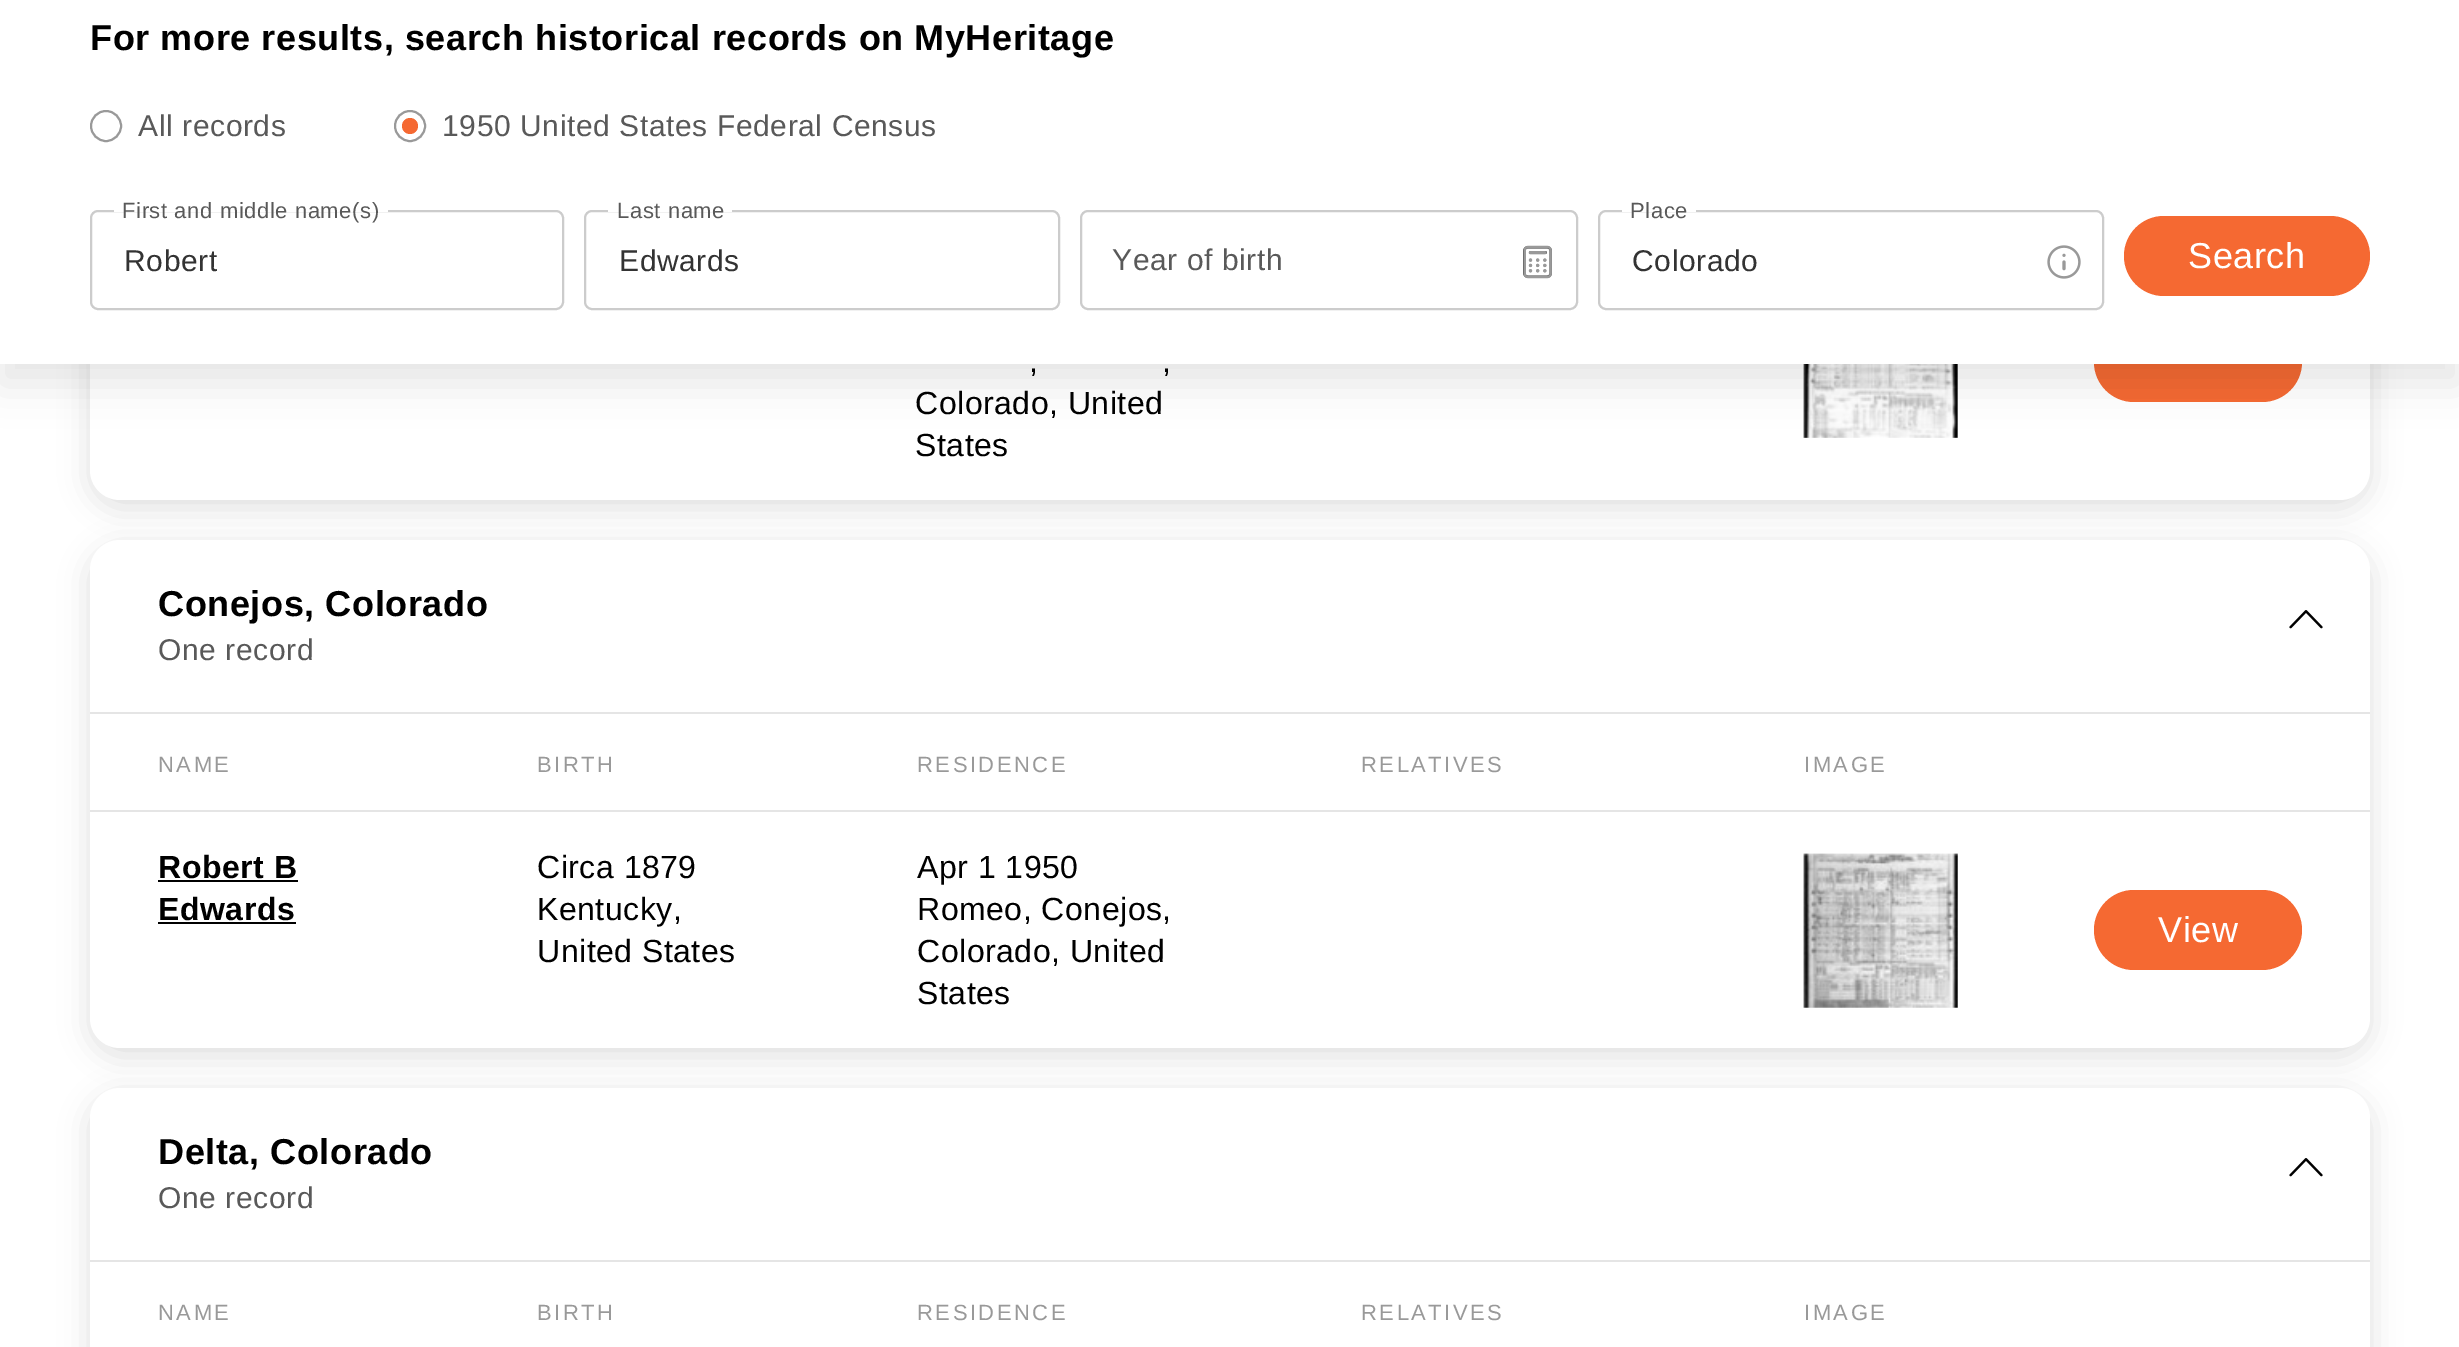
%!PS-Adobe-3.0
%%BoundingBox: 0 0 2459 1347
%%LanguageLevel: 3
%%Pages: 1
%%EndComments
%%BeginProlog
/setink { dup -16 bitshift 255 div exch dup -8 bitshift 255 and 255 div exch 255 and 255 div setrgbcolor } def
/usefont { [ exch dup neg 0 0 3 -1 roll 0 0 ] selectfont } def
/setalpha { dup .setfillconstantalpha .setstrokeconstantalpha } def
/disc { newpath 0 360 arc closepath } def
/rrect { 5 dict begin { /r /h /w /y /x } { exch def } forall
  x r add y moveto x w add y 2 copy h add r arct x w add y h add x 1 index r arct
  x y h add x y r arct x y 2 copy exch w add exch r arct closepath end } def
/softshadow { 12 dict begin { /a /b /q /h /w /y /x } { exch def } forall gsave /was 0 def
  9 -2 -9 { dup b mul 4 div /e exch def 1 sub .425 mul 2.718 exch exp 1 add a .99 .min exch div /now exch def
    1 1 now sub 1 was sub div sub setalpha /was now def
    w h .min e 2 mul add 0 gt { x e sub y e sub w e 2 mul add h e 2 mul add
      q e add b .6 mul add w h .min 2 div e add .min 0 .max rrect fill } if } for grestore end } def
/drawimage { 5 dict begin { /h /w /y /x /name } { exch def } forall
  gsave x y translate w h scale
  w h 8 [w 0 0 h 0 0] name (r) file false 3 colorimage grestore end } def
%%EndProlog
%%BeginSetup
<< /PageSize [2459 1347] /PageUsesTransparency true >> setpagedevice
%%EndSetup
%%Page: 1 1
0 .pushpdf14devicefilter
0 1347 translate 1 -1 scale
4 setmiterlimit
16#FFFFFF setink
0 0 2459 1347 rectfill
16#000000 setink
90 -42 2280 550 30 15 0.12 softshadow
16#FFFFFF setink
90 -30 2280 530 30 rrect fill
(img3.raw) 1803 364 155 74 drawimage
16#F56932 setink
2094 322 208 80 40 rrect fill
16#000000 setink
0 20 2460 364 0 20 0.1 softshadow
16#FFFFFF setink
0 0 2459 364 rectfill
/LiberationSans-Bold 36 usefont
16#000000 setink
90 50 moveto 0.6 0 (For more results, search historical records on MyHeritage) ashow
16#999999 setink
2 setlinewidth
106 126 15 disc stroke
/LiberationSans-Regular 30 usefont
16#595959 setink
138 136 moveto 0.6 0 (All records) ashow
16#999999 setink
410 126 15 disc stroke
16#F56932 setink
410 126 8 disc fill
16#595959 setink
442 136 moveto 0.6 0 (1950 United States Federal Census) ashow
16#CCCCCC setink
91 211 472 98 7 rrect stroke
16#FFFFFF setink
114 210 274 2 rectfill
/LiberationSans-Regular 22 usefont
16#595959 setink
122 218 moveto 0.6 0 (First and middle name\(s\)) ashow
/LiberationSans-Regular 30 usefont
16#333333 setink
124 271 moveto 0.6 0 (Robert) ashow
16#CCCCCC setink
585 211 474 98 7 rrect stroke
16#FFFFFF setink
608 210 124 2 rectfill
/LiberationSans-Regular 22 usefont
16#595959 setink
617 218 moveto 0.6 0 (Last name) ashow
/LiberationSans-Regular 30 usefont
16#333333 setink
619 271 moveto 0.6 0 (Edwards) ashow
16#CCCCCC setink
1081 211 496 98 7 rrect stroke
16#595959 setink
1112 270 moveto 0.6 0 (Year of birth) ashow
(img1.raw) 1523 245 29 34 drawimage
16#CCCCCC setink
1599 211 504 98 7 rrect stroke
16#FFFFFF setink
1622 210 74 2 rectfill
/LiberationSans-Regular 22 usefont
16#595959 setink
1630 218 moveto 0.6 0 (Place) ashow
/LiberationSans-Regular 30 usefont
16#333333 setink
1632 271 moveto 0.6 0 (Colorado) ashow
(img2.raw) 2047 245 34 34 drawimage
16#F56932 setink
2124 216 246 80 40 rrect fill
/LiberationSans-Regular 36 usefont
16#FFFFFF setink
2188 268 moveto 0.6 0 (Search) ashow
/LiberationSans-Regular 32 usefont
16#000000 setink
1029 372 moveto 0.5 0 (,) ashow
1162 372 moveto 0.5 0 (,) ashow
915 414 moveto 0.5 0 (Colorado, United) ashow
915 456 moveto 0.5 0 (States) ashow
90 548 2280 508 30 15 0.12 softshadow
16#FFFFFF setink
90 540 2280 508 30 rrect fill
/LiberationSans-Bold 36 usefont
16#000000 setink
158 616 moveto 0.6 0 (Conejos, Colorado) ashow
/LiberationSans-Regular 30 usefont
16#595959 setink
158 660 moveto 0.6 0 (One record) ashow
(img4.raw) 2289 610 34 19 drawimage
16#E5E5E5 setink
90 712 2280 2 rectfill
/LiberationSans-Regular 22 usefont
16#999999 setink
158 772 moveto 2.5 0 (NAME) ashow
537 772 moveto 2.5 0 (BIRTH) ashow
917 772 moveto 2.5 0 (RESIDENCE) ashow
1361 772 moveto 2.5 0 (RELATIVES) ashow
1804 772 moveto 2.5 0 (IMAGE) ashow
16#E5E5E5 setink
90 810 2280 2 rectfill
/LiberationSans-Bold 32 usefont
16#000000 setink
158 878 moveto 0.5 0 (Robert B) ashow
158 880 140 2 rectfill
158 920 moveto 0.5 0 (Edwards) ashow
158 922 138 2 rectfill
/LiberationSans-Regular 32 usefont
537 878 moveto 0.5 0 (Circa 1879) ashow
537 920 moveto 0.5 0 (Kentucky,) ashow
537 962 moveto 0.5 0 (United States) ashow
917 878 moveto 0.5 0 (Apr 1 1950) ashow
917 920 moveto 0.5 0 (Romeo, Conejos,) ashow
917 962 moveto 0.5 0 (Colorado, United) ashow
917 1004 moveto 0.5 0 (States) ashow
(img5.raw) 1803 853 155 155 drawimage
16#F56932 setink
2094 890 208 80 40 rrect fill
/LiberationSans-Regular 36 usefont
16#FFFFFF setink
2158 942 moveto 0.6 0 (View) ashow
16#000000 setink
90 1096 2280 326 30 15 0.12 softshadow
16#FFFFFF setink
90 1088 2280 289 30 rrect fill
/LiberationSans-Bold 36 usefont
16#000000 setink
158 1164 moveto 0.6 0 (Delta, Colorado) ashow
/LiberationSans-Regular 30 usefont
16#595959 setink
158 1208 moveto 0.6 0 (One record) ashow
(img4.raw) 2289 1158 34 19 drawimage
16#E5E5E5 setink
90 1260 2280 2 rectfill
/LiberationSans-Regular 22 usefont
16#999999 setink
158 1320 moveto 2.5 0 (NAME) ashow
537 1320 moveto 2.5 0 (BIRTH) ashow
917 1320 moveto 2.5 0 (RESIDENCE) ashow
1361 1320 moveto 2.5 0 (RELATIVES) ashow
1804 1320 moveto 2.5 0 (IMAGE) ashow
.poppdf14devicefilter showpage
%%EOF
